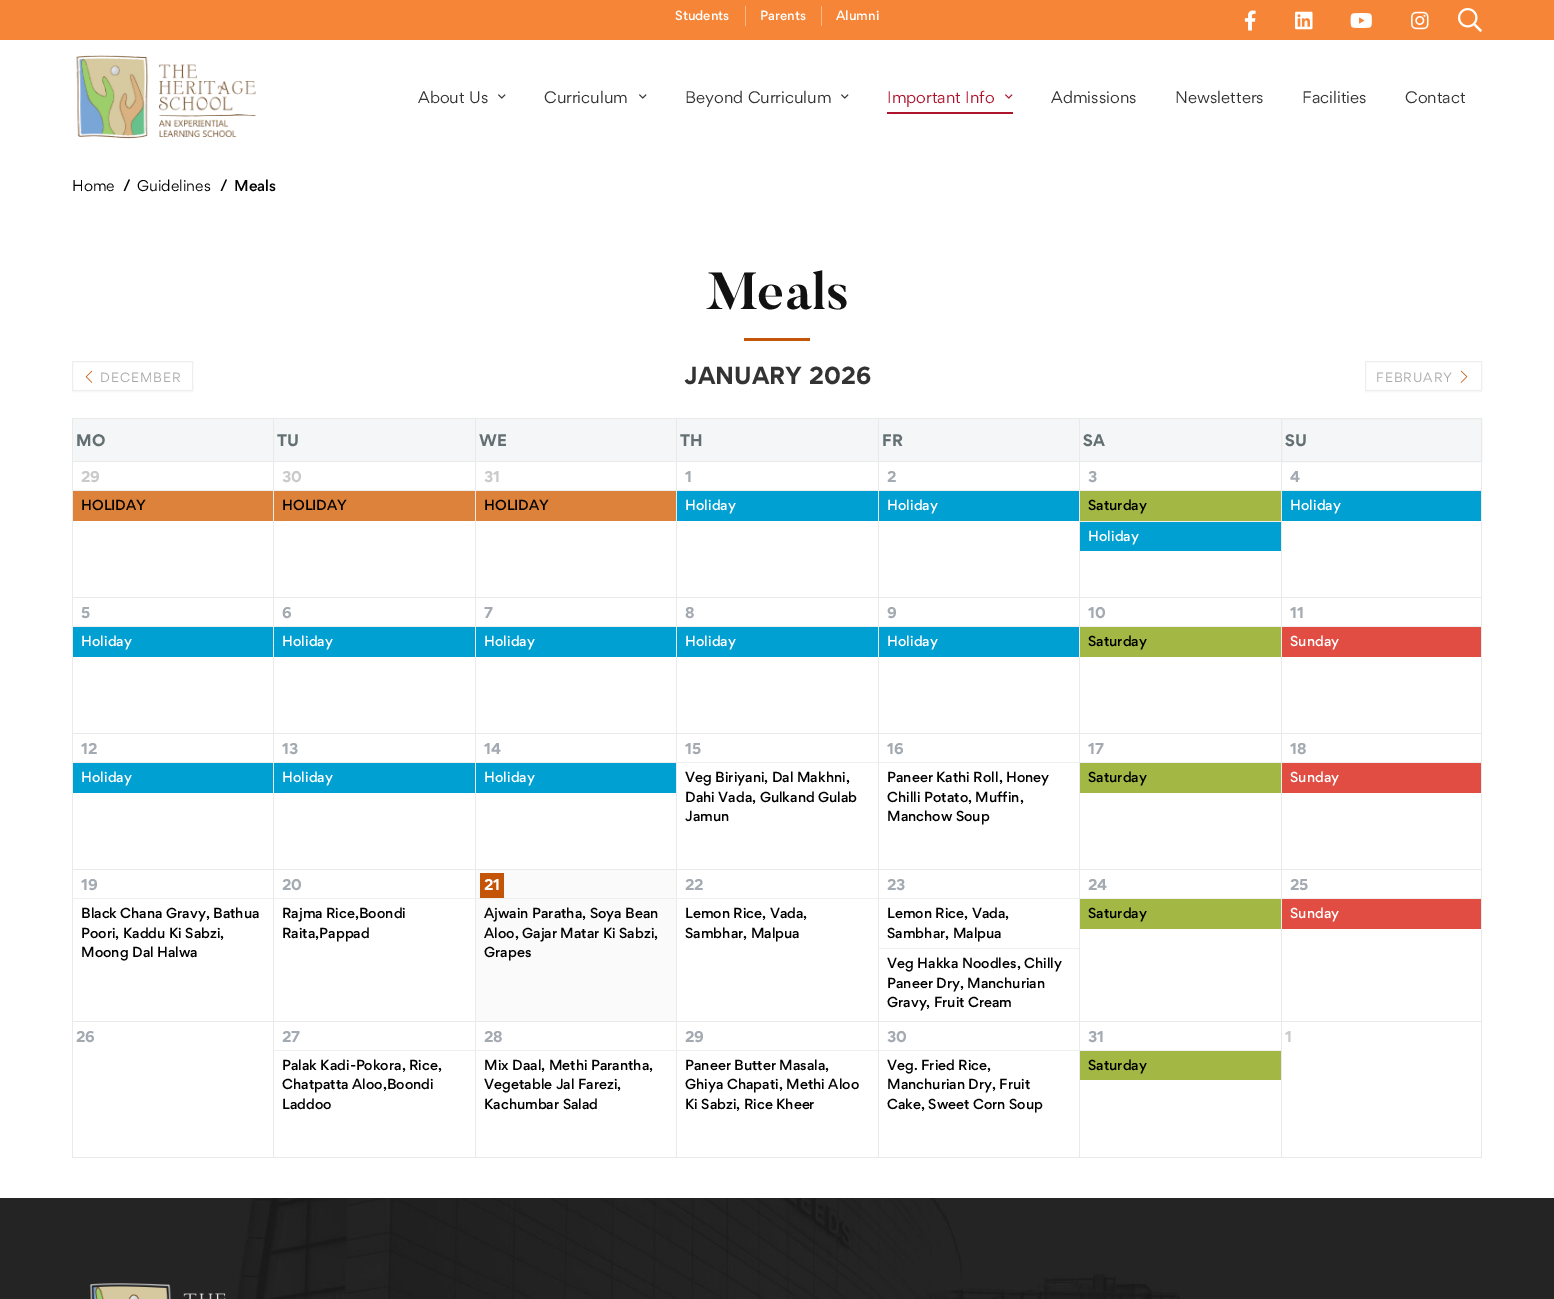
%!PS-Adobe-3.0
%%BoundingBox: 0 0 1554 1299
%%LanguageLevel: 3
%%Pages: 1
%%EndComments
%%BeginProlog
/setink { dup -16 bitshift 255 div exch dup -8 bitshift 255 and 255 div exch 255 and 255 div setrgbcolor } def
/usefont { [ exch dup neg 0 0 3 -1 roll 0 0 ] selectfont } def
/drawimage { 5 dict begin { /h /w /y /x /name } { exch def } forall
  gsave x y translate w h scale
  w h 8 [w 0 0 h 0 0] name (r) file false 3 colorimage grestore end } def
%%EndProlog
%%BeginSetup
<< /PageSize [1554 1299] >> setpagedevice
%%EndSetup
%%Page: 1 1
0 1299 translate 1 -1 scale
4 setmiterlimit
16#FFFFFF setink
0 0 1554 1299 rectfill
16#F68537 setink
0 0 1554 40 rectfill
/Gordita-Medium 12 usefont
16#FFFFFF setink
675 20 moveto (Students) show
16#FAB687 setink
745 6 1 20 rectfill
16#FFFFFF setink
760 20 moveto (Parents) show
16#FAB687 setink
821 6 1 20 rectfill
16#FFFFFF setink
836 20 moveto (Alumni) show
(img1.raw) 1244 10 12 21 drawimage
(img2.raw) 1295 11 18 19 drawimage
(img3.raw) 1350 13 22 15 drawimage
(img4.raw) 1411 11 18 19 drawimage
(img5.raw) 1458 8 24 24 drawimage
(img6.raw) 76 55 180 84 drawimage
/Gordita-Regular 15 usefont
16#333333 setink
418 103 moveto (About Us) show
(img7.raw) 498 94 8 5 drawimage
544 103 moveto (Curriculum) show
(img7.raw) 639 94 8 5 drawimage
685 103 moveto (Beyond Curriculum) show
(img7.raw) 841 94 8 5 drawimage
16#AE152D setink
887 103 moveto (Important Info) show
(img8.raw) 1005 94 8 5 drawimage
887 112 126 2 rectfill
16#333333 setink
[
    [(Admissions) 1051 103]
    [(Newsletters) 1175 103]
    [(Facilities) 1302 103]
    [(Contact) 1405 103]
] { aload pop moveto show } forall
/Gordita-Regular 14 usefont
16#000000 setink
72 191 moveto (Home) show
/Gordita-Medium 14 usefont
123 191 moveto (/) show
/Gordita-Regular 14 usefont
137 191 moveto (Guidelines) show
/Gordita-Medium 14 usefont
220 191 moveto (/) show
234 191 moveto (Meals) show
/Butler-Bold 52 usefont
16#111111 setink
706 309 moveto (Meals) show
16#C45508 setink
744 338 66 3 rectfill
16#FBFBFB setink
72 391 121 2 rectfill
16#EEEEEE setink
72.5 361.5 120 29 rectstroke
(img9.raw) 85 370 8 13 drawimage
/Gordita-Regular 12 usefont
16#A9A9A9 setink
100 382 moveto 1 0 (DECEMBER) ashow
/Gordita-Bold 22 usefont
16#333333 setink
684 384 moveto 2 0 32 (JANUARY 2026) widthshow
16#FBFBFB setink
1365 391 117 2 rectfill
16#EEEEEE setink
1365.5 361.5 116 29 rectstroke
/Gordita-Regular 12 usefont
16#A9A9A9 setink
1376 382 moveto 1 0 (FEBRUARY) ashow
(img10.raw) 1460 370 8 13 drawimage
[
    [73 419 1408 42 16#F5F6F7]
    [72 418 1209 1 16#EAEAEA]
    [72 461 1209 1 16#EAEAEA]
    [72 418 1 44 16#EAEAEA]
] { aload pop setink rectfill } forall
/Gordita-Bold 15 usefont
16#636F72 setink
76 446 moveto (MO) show
16#EAEAEA setink
273 418 1 44 rectfill
16#636F72 setink
277 446 moveto (TU) show
16#EAEAEA setink
475 418 1 44 rectfill
16#636F72 setink
479 446 moveto (WE) show
16#EAEAEA setink
676 418 1 44 rectfill
16#636F72 setink
680 446 moveto (TH) show
16#EAEAEA setink
878 418 1 44 rectfill
16#636F72 setink
882 446 moveto (FR) show
16#EAEAEA setink
1079 418 1 44 rectfill
16#636F72 setink
1083 446 moveto (SA) show
16#EAEAEA setink
1281.5 418.5 200 43 rectstroke
16#636F72 setink
1285 446 moveto (SU) show
16#EAEAEA setink
72 597 1209 1 rectfill
72 462 1 136 rectfill
/Gordita-Bold 14 usefont
16#CACACA setink
81 482 moveto (29) show
16#DD823B setink
73 491 200 30 rectfill
16#EFEFEF setink
73 490 200 1 rectfill
/Gordita-Medium 13 usefont
16#000000 setink
81 510 moveto (HOLIDAY) show
16#EAEAEA setink
273 462 1 136 rectfill
/Gordita-Bold 14 usefont
16#CACACA setink
282 482 moveto (30) show
16#DD823B setink
274 491 201 30 rectfill
16#EFEFEF setink
274 490 201 1 rectfill
/Gordita-Medium 13 usefont
16#000000 setink
282 510 moveto (HOLIDAY) show
16#EAEAEA setink
475 462 1 136 rectfill
/Gordita-Bold 14 usefont
16#CACACA setink
484 482 moveto (31) show
16#DD823B setink
476 491 200 30 rectfill
16#EFEFEF setink
476 490 200 1 rectfill
/Gordita-Medium 13 usefont
16#000000 setink
484 510 moveto (HOLIDAY) show
16#EAEAEA setink
676 462 1 136 rectfill
/Gordita-Bold 14 usefont
16#A4AAB1 setink
685 482 moveto (1) show
16#00A0D2 setink
677 491 201 30 rectfill
16#EFEFEF setink
677 490 201 1 rectfill
/Gordita-Medium 13 usefont
16#FFFFFF setink
685 510 moveto (Holiday) show
16#EAEAEA setink
878 462 1 136 rectfill
/Gordita-Bold 14 usefont
16#A4AAB1 setink
887 482 moveto (2) show
16#00A0D2 setink
879 491 200 30 rectfill
16#EFEFEF setink
879 490 200 1 rectfill
/Gordita-Medium 13 usefont
16#FFFFFF setink
887 510 moveto (Holiday) show
16#EAEAEA setink
1079 462 1 136 rectfill
/Gordita-Bold 14 usefont
16#A4AAB1 setink
1088 482 moveto (3) show
16#A3B745 setink
1080 491 201 30 rectfill
16#EFEFEF setink
1080 490 201 1 rectfill
/Gordita-Medium 13 usefont
16#000000 setink
1088 510 moveto (Saturday) show
16#00A0D2 setink
1080 522 201 29 rectfill
16#EFEFEF setink
1080 521 201 1 rectfill
16#FFFFFF setink
1088 541 moveto (Holiday) show
[
    [1481 462 1 696 16#EAEAEA]
    [1281 597 201 1 16#EAEAEA]
    [1281 462 1 136 16#EAEAEA]
] { aload pop setink rectfill } forall
/Gordita-Bold 14 usefont
16#A4AAB1 setink
1290 482 moveto (4) show
16#00A0D2 setink
1282 491 199 30 rectfill
16#EFEFEF setink
1282 490 199 1 rectfill
/Gordita-Medium 13 usefont
16#FFFFFF setink
1290 510 moveto (Holiday) show
16#EAEAEA setink
72 733 1410 1 rectfill
72 598 1 136 rectfill
/Gordita-Bold 14 usefont
16#A4AAB1 setink
81 618 moveto (5) show
16#00A0D2 setink
73 627 200 30 rectfill
16#EFEFEF setink
73 626 200 1 rectfill
/Gordita-Medium 13 usefont
16#FFFFFF setink
81 646 moveto (Holiday) show
16#EAEAEA setink
273 598 1 136 rectfill
/Gordita-Bold 14 usefont
16#A4AAB1 setink
282 618 moveto (6) show
16#00A0D2 setink
274 627 201 30 rectfill
16#EFEFEF setink
274 626 201 1 rectfill
/Gordita-Medium 13 usefont
16#FFFFFF setink
282 646 moveto (Holiday) show
16#EAEAEA setink
475 598 1 136 rectfill
/Gordita-Bold 14 usefont
16#A4AAB1 setink
484 618 moveto (7) show
16#00A0D2 setink
476 627 200 30 rectfill
16#EFEFEF setink
476 626 200 1 rectfill
/Gordita-Medium 13 usefont
16#FFFFFF setink
484 646 moveto (Holiday) show
16#EAEAEA setink
676 598 1 136 rectfill
/Gordita-Bold 14 usefont
16#A4AAB1 setink
685 618 moveto (8) show
16#00A0D2 setink
677 627 201 30 rectfill
16#EFEFEF setink
677 626 201 1 rectfill
/Gordita-Medium 13 usefont
16#FFFFFF setink
685 646 moveto (Holiday) show
16#EAEAEA setink
878 598 1 136 rectfill
/Gordita-Bold 14 usefont
16#A4AAB1 setink
887 618 moveto (9) show
16#00A0D2 setink
879 627 200 30 rectfill
16#EFEFEF setink
879 626 200 1 rectfill
/Gordita-Medium 13 usefont
16#FFFFFF setink
887 646 moveto (Holiday) show
16#EAEAEA setink
1079 598 1 136 rectfill
/Gordita-Bold 14 usefont
16#A4AAB1 setink
1088 618 moveto (10) show
16#A3B745 setink
1080 627 201 30 rectfill
16#EFEFEF setink
1080 626 201 1 rectfill
/Gordita-Medium 13 usefont
16#000000 setink
1088 646 moveto (Saturday) show
16#EAEAEA setink
1281 598 1 136 rectfill
/Gordita-Bold 14 usefont
16#A4AAB1 setink
1290 618 moveto (11) show
16#E14D43 setink
1282 627 199 30 rectfill
16#EFEFEF setink
1282 626 199 1 rectfill
/Gordita-Medium 13 usefont
16#FFFFFF setink
1290 646 moveto (Sunday) show
16#EAEAEA setink
72 869 1410 1 rectfill
72 734 1 136 rectfill
/Gordita-Bold 14 usefont
16#A4AAB1 setink
81 754 moveto (12) show
16#00A0D2 setink
73 763 200 30 rectfill
16#EFEFEF setink
73 762 200 1 rectfill
/Gordita-Medium 13 usefont
16#FFFFFF setink
81 782 moveto (Holiday) show
16#EAEAEA setink
273 734 1 136 rectfill
/Gordita-Bold 14 usefont
16#A4AAB1 setink
282 754 moveto (13) show
16#00A0D2 setink
274 763 201 30 rectfill
16#EFEFEF setink
274 762 201 1 rectfill
/Gordita-Medium 13 usefont
16#FFFFFF setink
282 782 moveto (Holiday) show
16#EAEAEA setink
475 734 1 136 rectfill
/Gordita-Bold 14 usefont
16#A4AAB1 setink
484 754 moveto (14) show
16#00A0D2 setink
476 763 200 30 rectfill
16#EFEFEF setink
476 762 200 1 rectfill
/Gordita-Medium 13 usefont
16#FFFFFF setink
484 782 moveto (Holiday) show
16#EAEAEA setink
676 734 1 136 rectfill
/Gordita-Bold 14 usefont
16#A4AAB1 setink
685 754 moveto (15) show
16#EFEFEF setink
677 762 201 1 rectfill
/Gordita-Medium 13 usefont
16#000000 setink
[
    [(Veg Biriyani, Dal Makhni,) 685 782]
    [(Dahi Vada, Gulkand Gulab) 685 802]
    [(Jamun) 685 821]
] { aload pop moveto show } forall
16#EAEAEA setink
878 734 1 136 rectfill
/Gordita-Bold 14 usefont
16#A4AAB1 setink
887 754 moveto (16) show
16#EFEFEF setink
879 762 200 1 rectfill
/Gordita-Medium 13 usefont
16#000000 setink
[
    [(Paneer Kathi Roll, Honey) 887 782]
    [(Chilli Potato, Muffin,) 887 802]
    [(Manchow Soup) 887 821]
] { aload pop moveto show } forall
16#EAEAEA setink
1079 734 1 136 rectfill
/Gordita-Bold 14 usefont
16#A4AAB1 setink
1088 754 moveto (17) show
16#A3B745 setink
1080 763 201 30 rectfill
16#EFEFEF setink
1080 762 201 1 rectfill
/Gordita-Medium 13 usefont
16#000000 setink
1088 782 moveto (Saturday) show
16#EAEAEA setink
1281 734 1 136 rectfill
/Gordita-Bold 14 usefont
16#A4AAB1 setink
1290 754 moveto (18) show
16#E14D43 setink
1282 763 199 30 rectfill
16#EFEFEF setink
1282 762 199 1 rectfill
/Gordita-Medium 13 usefont
16#FFFFFF setink
1290 782 moveto (Sunday) show
16#EAEAEA setink
72 1021 1410 1 rectfill
72 870 1 152 rectfill
/Gordita-Bold 14 usefont
16#A4AAB1 setink
81 890 moveto (19) show
16#EFEFEF setink
73 898 200 1 rectfill
/Gordita-Medium 13 usefont
16#000000 setink
[
    [(Black Chana Gravy, Bathua) 81 918]
    [(Poori, Kaddu Ki Sabzi,) 81 938]
    [(Moong Dal Halwa) 81 957]
] { aload pop moveto show } forall
16#EAEAEA setink
273 870 1 152 rectfill
/Gordita-Bold 14 usefont
16#A4AAB1 setink
282 890 moveto (20) show
16#EFEFEF setink
274 898 201 1 rectfill
/Gordita-Medium 13 usefont
16#000000 setink
282 918 moveto (Rajma Rice,Boondi) show
282 938 moveto (Raita,Pappad) show
[
    [476 870 200 151 16#FAFAFA]
    [475 870 1 152 16#EAEAEA]
    [480 873 24 25 16#C45508]
] { aload pop setink rectfill } forall
/Gordita-Bold 14 usefont
16#FFFFFF setink
484 890 moveto (21) show
16#EFEFEF setink
476 898 200 1 rectfill
/Gordita-Medium 13 usefont
16#000000 setink
[
    [(Ajwain Paratha, Soya Bean) 484 918]
    [(Aloo, Gajar Matar Ki Sabzi,) 484 938]
    [(Grapes) 484 957]
] { aload pop moveto show } forall
16#EAEAEA setink
676 870 1 152 rectfill
/Gordita-Bold 14 usefont
16#A4AAB1 setink
685 890 moveto (22) show
16#EFEFEF setink
677 898 201 1 rectfill
/Gordita-Medium 13 usefont
16#000000 setink
685 918 moveto (Lemon Rice, Vada,) show
685 938 moveto (Sambhar, Malpua) show
16#EAEAEA setink
878 870 1 152 rectfill
/Gordita-Bold 14 usefont
16#A4AAB1 setink
887 890 moveto (23) show
16#EFEFEF setink
879 898 200 1 rectfill
/Gordita-Medium 13 usefont
16#000000 setink
887 918 moveto (Lemon Rice, Vada,) show
887 938 moveto (Sambhar, Malpua) show
16#EFEFEF setink
879 948 200 1 rectfill
16#000000 setink
[
    [(Veg Hakka Noodles, Chilly) 887 968]
    [(Paneer Dry, Manchurian) 887 988]
    [(Gravy, Fruit Cream) 887 1007]
] { aload pop moveto show } forall
16#EAEAEA setink
1079 870 1 152 rectfill
/Gordita-Bold 14 usefont
16#A4AAB1 setink
1088 890 moveto (24) show
16#A3B745 setink
1080 899 201 30 rectfill
16#EFEFEF setink
1080 898 201 1 rectfill
/Gordita-Medium 13 usefont
16#000000 setink
1088 918 moveto (Saturday) show
16#EAEAEA setink
1281 870 1 152 rectfill
/Gordita-Bold 14 usefont
16#A4AAB1 setink
1290 890 moveto (25) show
16#E14D43 setink
1282 899 199 30 rectfill
16#EFEFEF setink
1282 898 199 1 rectfill
/Gordita-Medium 13 usefont
16#FFFFFF setink
1290 918 moveto (Sunday) show
16#EAEAEA setink
72 1157 1410 1 rectfill
72 1022 1 136 rectfill
/Gordita-Bold 14 usefont
16#A4AAB1 setink
76 1042 moveto (26) show
16#EAEAEA setink
273 1022 1 136 rectfill
16#A4AAB1 setink
282 1042 moveto (27) show
16#EFEFEF setink
274 1050 201 1 rectfill
/Gordita-Medium 13 usefont
16#000000 setink
[
    [(Palak Kadi-Pokora, Rice,) 282 1070]
    [(Chatpatta Aloo,Boondi) 282 1089]
    [(Laddoo) 282 1109]
] { aload pop moveto show } forall
16#EAEAEA setink
475 1022 1 136 rectfill
/Gordita-Bold 14 usefont
16#A4AAB1 setink
484 1042 moveto (28) show
16#EFEFEF setink
476 1050 200 1 rectfill
/Gordita-Medium 13 usefont
16#000000 setink
[
    [(Mix Daal, Methi Parantha,) 484 1070]
    [(Vegetable Jal Farezi,) 484 1089]
    [(Kachumbar Salad) 484 1109]
] { aload pop moveto show } forall
16#EAEAEA setink
676 1022 1 136 rectfill
/Gordita-Bold 14 usefont
16#A4AAB1 setink
685 1042 moveto (29) show
16#EFEFEF setink
677 1050 201 1 rectfill
/Gordita-Medium 13 usefont
16#000000 setink
[
    [(Paneer Butter Masala,) 685 1070]
    [(Ghiya Chapati, Methi Aloo) 685 1089]
    [(Ki Sabzi, Rice Kheer) 685 1109]
] { aload pop moveto show } forall
16#EAEAEA setink
878 1022 1 136 rectfill
/Gordita-Bold 14 usefont
16#A4AAB1 setink
887 1042 moveto (30) show
16#EFEFEF setink
879 1050 200 1 rectfill
/Gordita-Medium 13 usefont
16#000000 setink
[
    [(Veg. Fried Rice,) 887 1070]
    [(Manchurian Dry, Fruit) 887 1089]
    [(Cake, Sweet Corn Soup) 887 1109]
] { aload pop moveto show } forall
16#EAEAEA setink
1079 1022 1 136 rectfill
/Gordita-Bold 14 usefont
16#A4AAB1 setink
1088 1042 moveto (31) show
16#A3B745 setink
1080 1051 201 29 rectfill
16#EFEFEF setink
1080 1050 201 1 rectfill
/Gordita-Medium 13 usefont
16#000000 setink
1088 1070 moveto (Saturday) show
16#EAEAEA setink
1281 1022 1 136 rectfill
/Gordita-Bold 14 usefont
16#CACACA setink
1285 1042 moveto (1) show
(img11.raw) 0 1198 1554 101 drawimage
(img12.raw) 89 1283 137 16 drawimage
showpage
%%EOF
